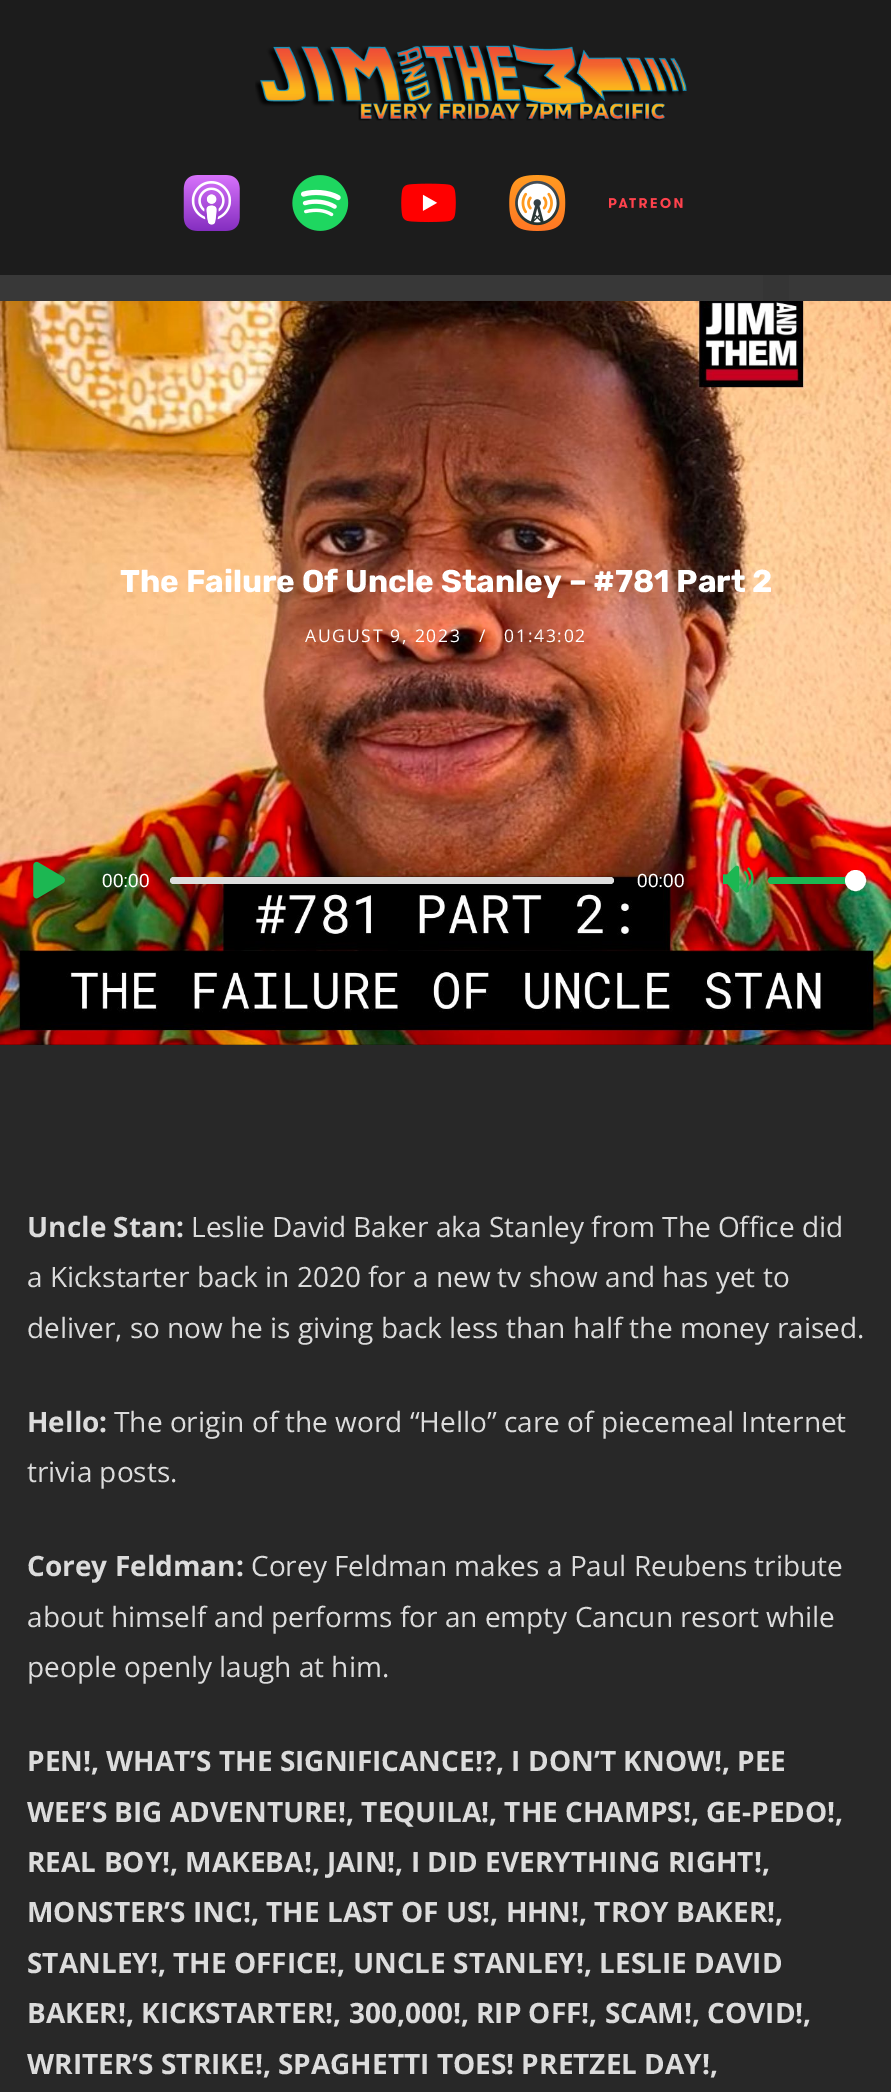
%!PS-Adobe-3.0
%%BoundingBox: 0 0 891 2092
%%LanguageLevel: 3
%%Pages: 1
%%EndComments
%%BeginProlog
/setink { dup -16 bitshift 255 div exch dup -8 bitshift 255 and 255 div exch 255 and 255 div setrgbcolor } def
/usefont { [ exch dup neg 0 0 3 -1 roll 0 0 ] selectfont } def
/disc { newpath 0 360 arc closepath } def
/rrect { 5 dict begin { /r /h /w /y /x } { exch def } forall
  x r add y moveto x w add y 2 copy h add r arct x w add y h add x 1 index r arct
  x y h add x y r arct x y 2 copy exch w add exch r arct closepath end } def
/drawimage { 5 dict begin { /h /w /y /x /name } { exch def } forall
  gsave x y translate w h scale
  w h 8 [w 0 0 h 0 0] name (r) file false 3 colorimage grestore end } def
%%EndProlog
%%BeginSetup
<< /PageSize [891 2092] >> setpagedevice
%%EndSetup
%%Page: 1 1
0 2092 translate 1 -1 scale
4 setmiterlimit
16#282828 setink
0 0 891 2092 rectfill
16#1C1C1C setink
0 0 891 275 rectfill
(img1.raw) 255 44 432 77 drawimage
(img2.raw) 183 175 57 56 drawimage
(img3.raw) 292 175 57 56 drawimage
(img4.raw) 401 183 55 40 drawimage
(img5.raw) 509 175 57 56 drawimage
(img6.raw) 609 197 74 12 drawimage
16#383838 setink
0 275 891 26 rectfill
16#353535 setink
763 275 26 26 rectfill
(img7.raw) 0 301 891 744 drawimage
/Rubik-Bold 31.5 usefont
16#FFFFFF setink
120 592 moveto (The Failure Of Uncle Stanley – #781 Part 2) show
/OpenSans-Regular 17.5 usefont
305 642 moveto 1.75 0 (AUGUST 9, 2023) ashow
479 642 moveto 1.75 0 (/) ashow
504 642 moveto 1.75 0 (01:43:02) ashow
(img8.raw) 33 861 32 38 drawimage
/LiberationSans-Regular 19 usefont
102 887 moveto (00:00) show
16#DEDEDE setink
170 877 444 7 3.5 rrect fill
16#FFFFFF setink
637 887 moveto (00:00) show
(img9.raw) 723 865 31 28 drawimage
16#1CB752 setink
768 877 88 7 3.5 rrect fill
16#FFFFFF setink
855.5 880.5 9.5 disc gsave fill grestore
2 setlinewidth
stroke
/OpenSans-Bold 28 usefont
16#DCDCDC setink
27 1237 moveto (Uncle Stan:) show
/OpenSans-Regular 28 usefont
[
    [(Leslie David Baker aka Stanley from The Office did) 191 1237]
    [(a Kickstarter back in 2020 for a new tv show and has yet to) 27 1287]
    [(deliver, so now he is giving back less than half the money raised.) 27 1338]
] { aload pop moveto show } forall
/OpenSans-Bold 28 usefont
27 1432 moveto (Hello:) show
/OpenSans-Regular 28 usefont
114 1432 moveto (The origin of the word “Hello” care of piecemeal Internet) show
27 1482 moveto (trivia posts.) show
/OpenSans-Bold 28 usefont
27 1576 moveto (Corey Feldman:) show
/OpenSans-Regular 28 usefont
[
    [(Corey Feldman makes a Paul Reubens tribute) 251 1576]
    [(about himself and performs for an empty Cancun resort while) 27 1627]
    [(people openly laugh at him.) 27 1677]
] { aload pop moveto show } forall
/OpenSans-Bold 28 usefont
[
    [(PEN!, WHAT’S THE SIGNIFICANCE!?, I DON’T KNOW!, PEE) 27 1771]
    [(WEE’S BIG ADVENTURE!, TEQUILA!, THE CHAMPS!, GE-PEDO!,) 27 1822]
    [(REAL BOY!, MAKEBA!, JAIN!, I DID EVERYTHING RIGHT!,) 27 1872]
    [(MONSTER’S INC!, THE LAST OF US!, HHN!, TROY BAKER!,) 27 1922]
    [(STANLEY!, THE OFFICE!, UNCLE STANLEY!, LESLIE DAVID) 27 1973]
    [(BAKER!, KICKSTARTER!, 300,000!, RIP OFF!, SCAM!, COVID!,) 27 2023]
    [(WRITER’S STRIKE!, SPAGHETTI TOES! PRETZEL DAY!,) 27 2074]
] { aload pop moveto show } forall
showpage
%%EOF
